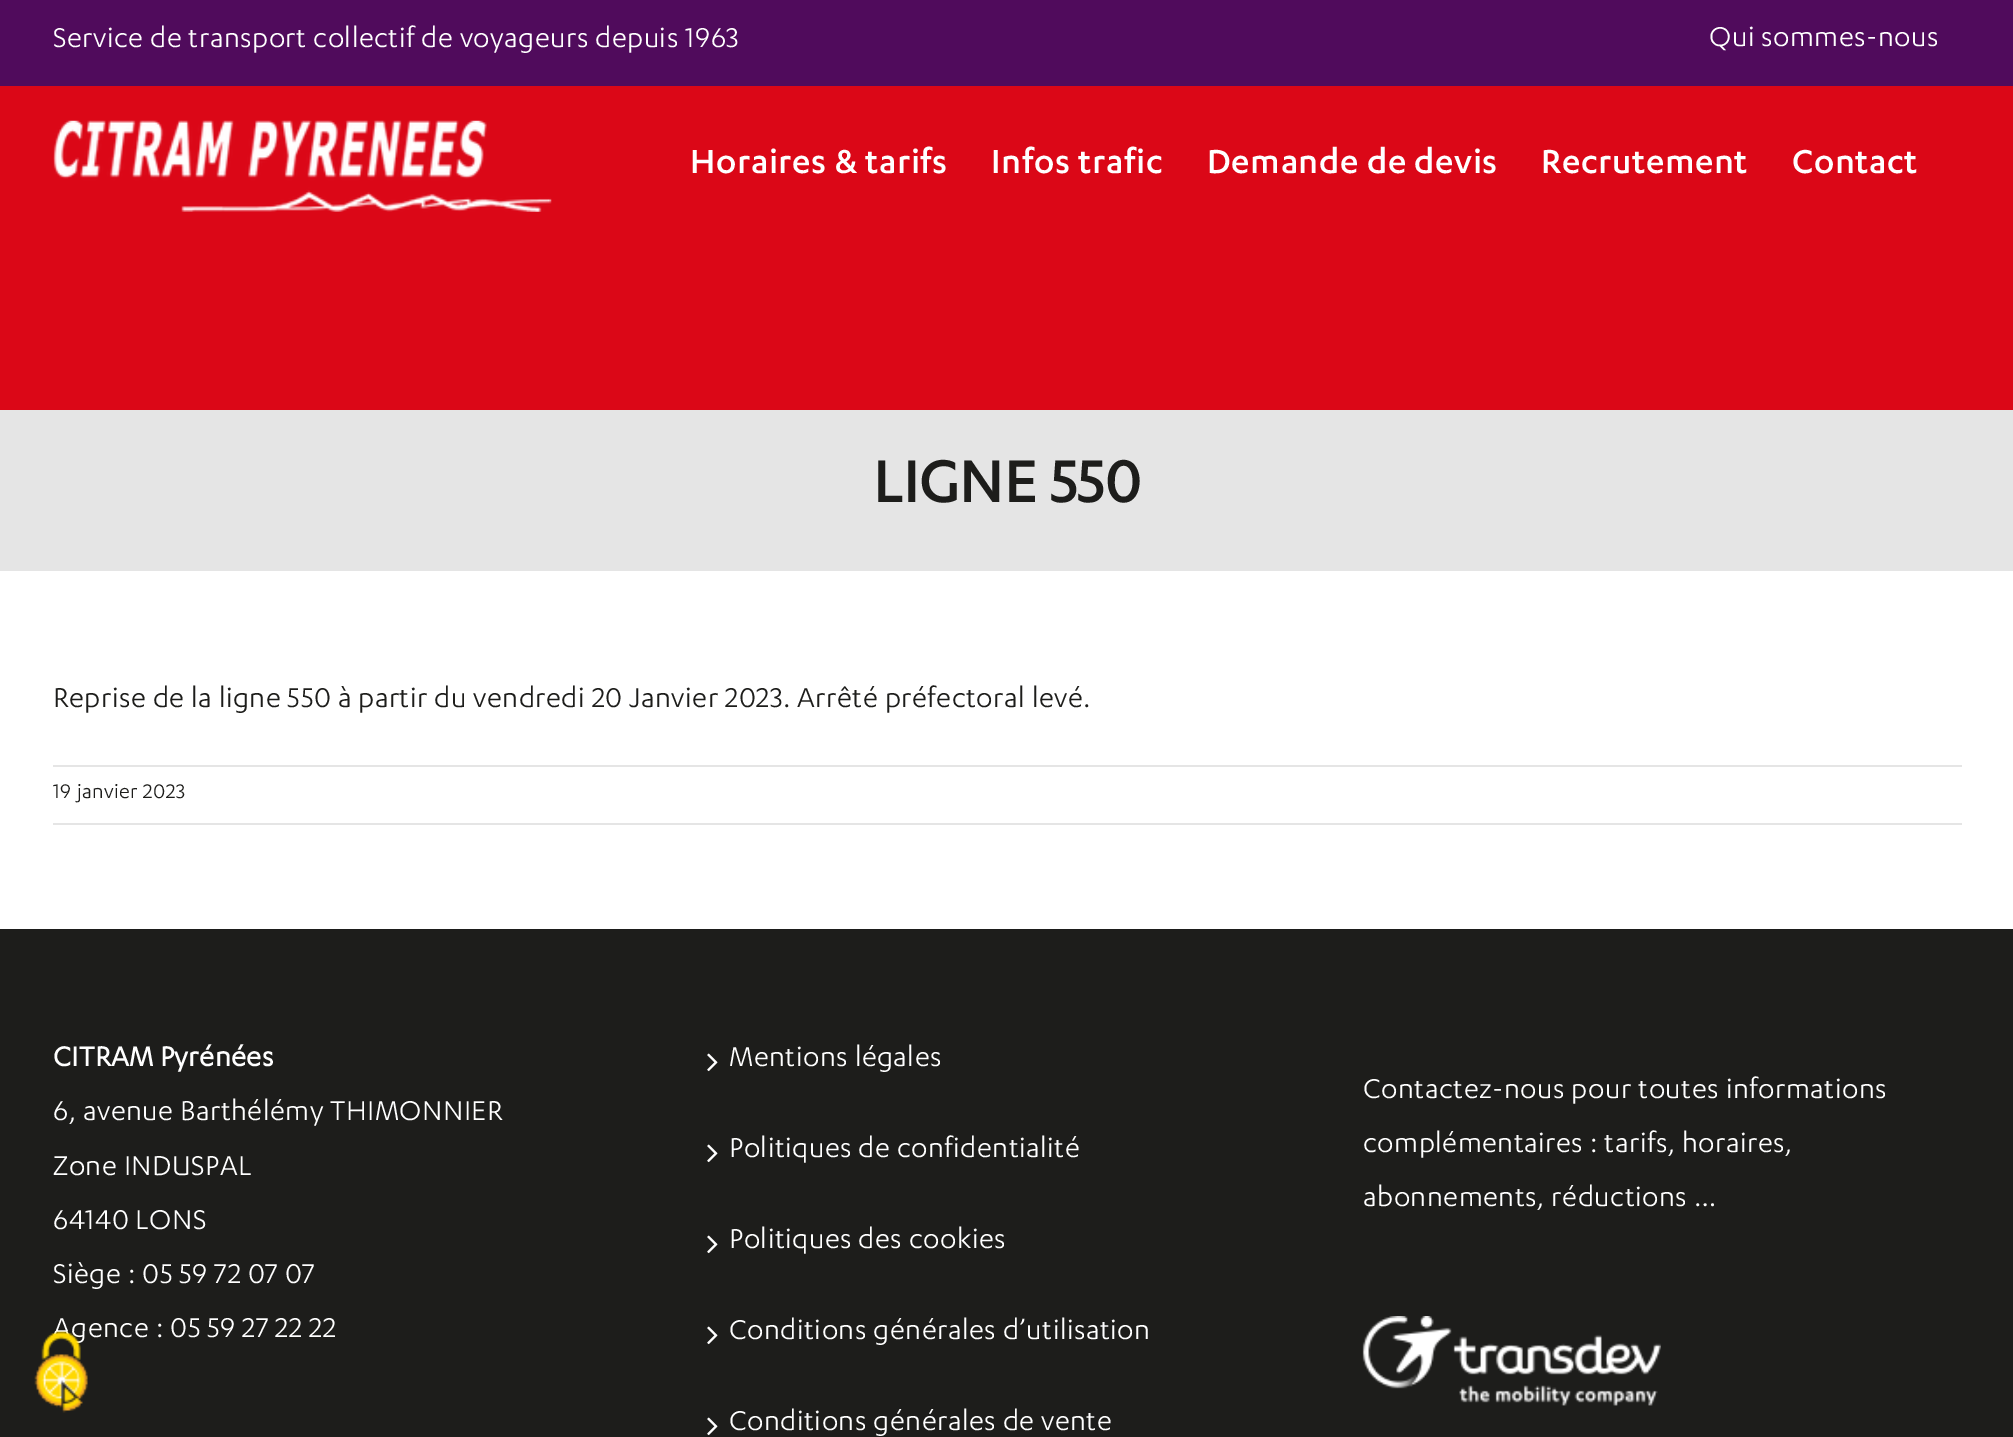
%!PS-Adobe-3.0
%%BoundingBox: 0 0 2013 1437
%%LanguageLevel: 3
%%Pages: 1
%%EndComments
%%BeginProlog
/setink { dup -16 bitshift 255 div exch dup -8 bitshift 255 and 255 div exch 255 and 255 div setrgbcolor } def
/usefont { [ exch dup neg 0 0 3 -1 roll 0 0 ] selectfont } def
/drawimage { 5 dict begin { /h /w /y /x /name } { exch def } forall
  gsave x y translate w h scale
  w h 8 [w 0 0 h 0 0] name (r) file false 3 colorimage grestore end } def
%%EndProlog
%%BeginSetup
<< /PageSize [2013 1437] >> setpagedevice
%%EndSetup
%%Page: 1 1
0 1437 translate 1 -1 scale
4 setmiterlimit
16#FFFFFF setink
0 0 2013 1437 rectfill
16#500B5C setink
0 0 2013 86 rectfill
/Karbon-Regular 31.5 usefont
16#FFFFFF setink
53 47 moveto 0.47 0 (Service de transport collectif de voyageurs depuis 1963) ashow
1709 46 moveto 0.47 0 (Qui sommes-nous) ashow
16#DB0717 setink
0 86 2013 324 rectfill
(img1.raw) 53 120 499 92 drawimage
/Karbon-Medium 38.5 usefont
16#FFFFFF setink
690 173 moveto 0.6 0 (Horaires & tarifs) ashow
991 173 moveto 0.6 0 (Infos trafic) ashow
1207 173 moveto 0.6 0 (Demande de devis) ashow
1541 173 moveto 0.6 0 (Recrutement) ashow
1792 173 moveto 0.6 0 (Contact) ashow
16#E5E5E5 setink
0 410 2013 161 rectfill
/Karbon-Medium 70 usefont
16#1D1D1B setink
873 502 moveto -1 0 (LIGNE 550) ashow
/Karbon-Regular 31.5 usefont
53 707 moveto 0.47 0 (Reprise de la ligne 550 à partir du vendredi 20 Janvier 2023. Arrêté préfectoral levé.) ashow
16#E5E5E5 setink
53 765 1909 2 rectfill
53 823 1909 2 rectfill
/Karbon-Regular 22.75 usefont
16#1D1D1B setink
53 798 moveto 0.47 0 (19 janvier 2023) ashow
0 929 2013 508 rectfill
/Karbon-Bold 31.5 usefont
16#FFFFFF setink
53 1066 moveto 0.47 0 (CITRAM Pyrénées) ashow
/Karbon-Regular 31.5 usefont
53 1120 moveto 0.47 0 (6, avenue Barthélémy THIMONNIER) ashow
53 1175 moveto 0.47 0 (Zone INDUSPAL) ashow
53 1229 moveto 0.47 0 (64140 LONS) ashow
53 1283 moveto 0.47 0 (Siège : 05 59 72 07 07) ashow
53 1337 moveto 0.47 0 (Agence : 05 59 27 22 22) ashow
(img2.raw) 707 1053 11 19 drawimage
729 1066 moveto 0.47 0 (Mentions légales) ashow
(img2.raw) 707 1144 11 19 drawimage
729 1157 moveto 0.47 0 (Politiques de confidentialité) ashow
(img2.raw) 707 1235 11 19 drawimage
729 1248 moveto 0.47 0 (Politiques des cookies) ashow
(img2.raw) 707 1326 11 19 drawimage
729 1339 moveto 0.47 0 (Conditions générales d’utilisation) ashow
(img2.raw) 707 1417 11 19 drawimage
729 1430 moveto 0.47 0 (Conditions générales de vente) ashow
1363 1098 moveto 0.47 0 (Contactez-nous pour toutes informations) ashow
1363 1152 moveto 0.47 0 (complémentaires : tarifs, horaires,) ashow
1363 1206 moveto 0.47 0 (abonnements, réductions …) ashow
(img3.raw) 1362 1316 299 90 drawimage
(img4.raw) 34 1331 54 82 drawimage
showpage
%%EOF
